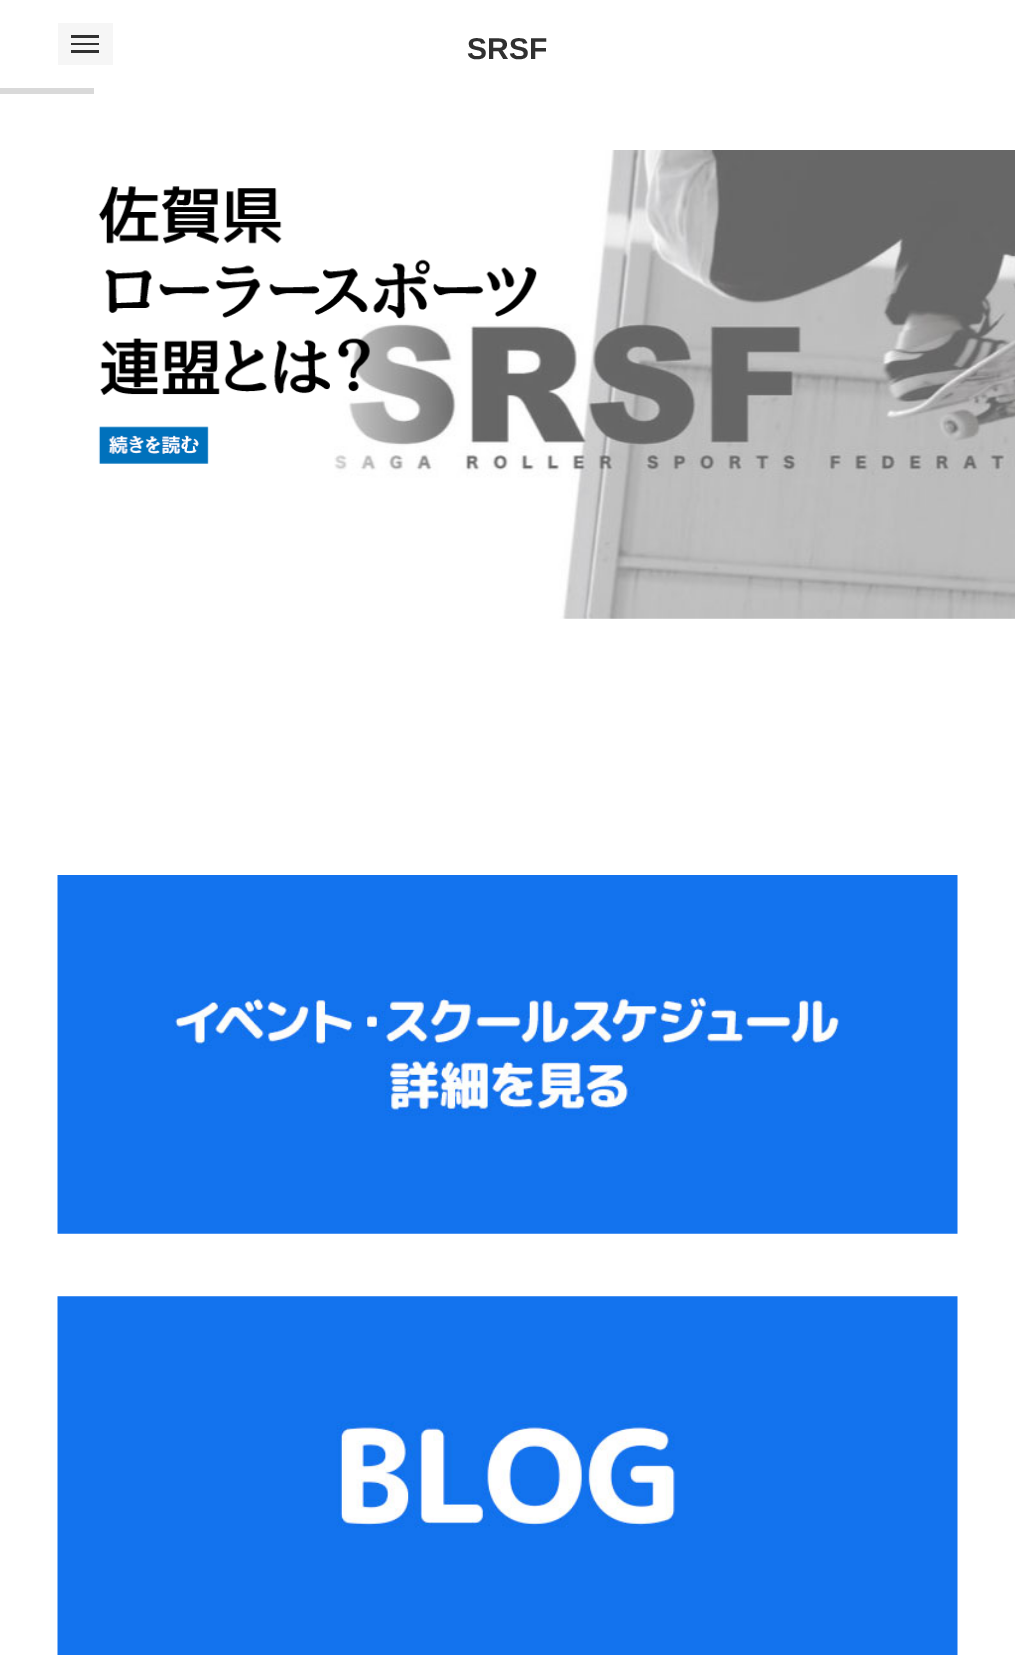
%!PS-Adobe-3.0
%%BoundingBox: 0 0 1015 1673
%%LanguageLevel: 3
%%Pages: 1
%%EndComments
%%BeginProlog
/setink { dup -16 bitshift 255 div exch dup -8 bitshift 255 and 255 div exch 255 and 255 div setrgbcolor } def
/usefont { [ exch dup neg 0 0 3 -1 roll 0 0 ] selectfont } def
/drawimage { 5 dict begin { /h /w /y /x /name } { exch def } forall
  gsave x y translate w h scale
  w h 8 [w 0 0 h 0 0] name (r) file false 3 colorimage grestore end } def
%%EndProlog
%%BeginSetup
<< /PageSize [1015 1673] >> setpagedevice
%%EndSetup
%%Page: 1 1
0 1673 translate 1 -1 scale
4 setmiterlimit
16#FFFFFF setink
0 0 1015 1673 rectfill
[
    [58 23 55 42 16#F6F6F6]
    [71 35 28 3 16#303030]
    [71 43 28 2 16#303030]
    [71 50 28 3 16#303030]
] { aload pop setink rectfill } forall
/LiberationSans-Bold 30 usefont
467 59 moveto (SRSF) show
16#D9D9D9 setink
0 88 94 6 rectfill
(img2.raw) 334 150 681 469 drawimage
(img1.raw) 98 186 439 209 drawimage
(img3.raw) 98 426 111 38 drawimage
(img4.raw) 57 875 901 359 drawimage
(img5.raw) 57 1296 901 359 drawimage
showpage
%%EOF
